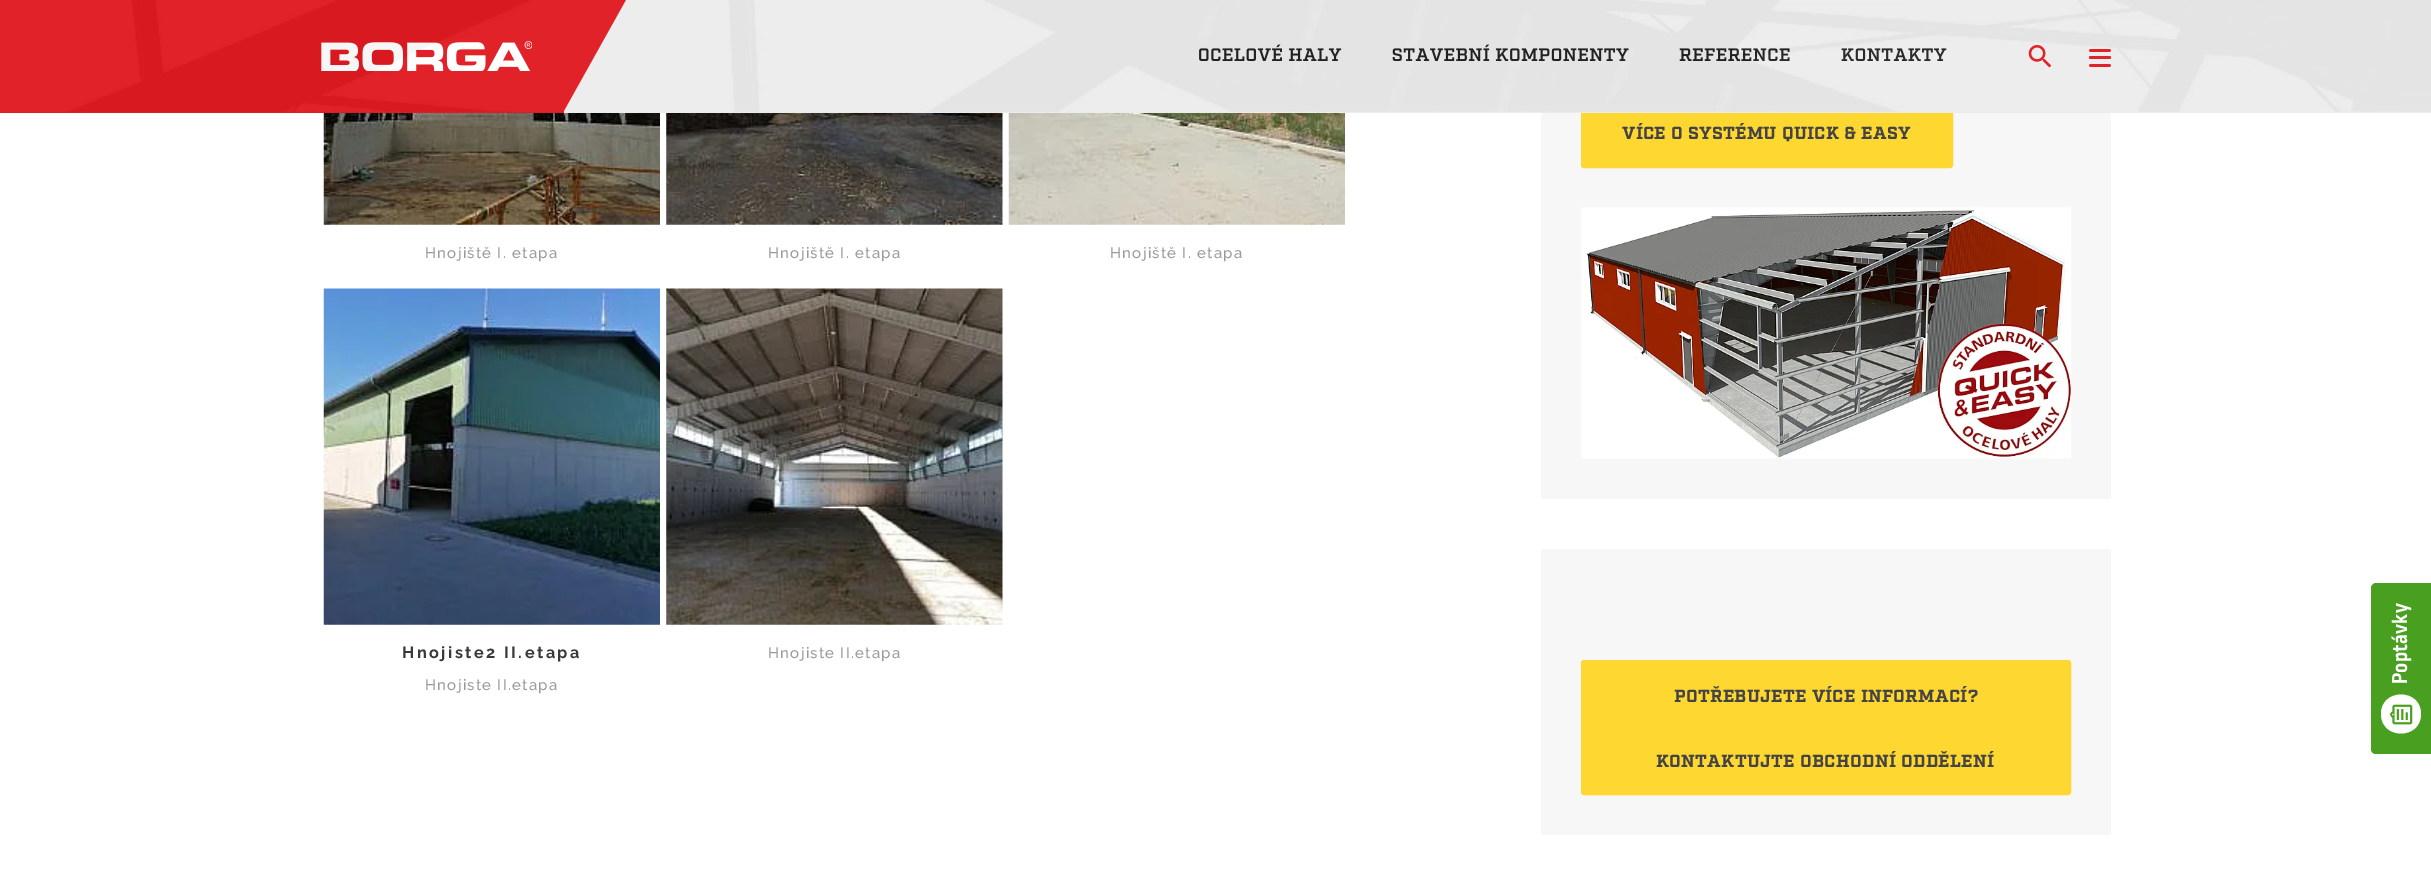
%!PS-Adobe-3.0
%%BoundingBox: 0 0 2431 889
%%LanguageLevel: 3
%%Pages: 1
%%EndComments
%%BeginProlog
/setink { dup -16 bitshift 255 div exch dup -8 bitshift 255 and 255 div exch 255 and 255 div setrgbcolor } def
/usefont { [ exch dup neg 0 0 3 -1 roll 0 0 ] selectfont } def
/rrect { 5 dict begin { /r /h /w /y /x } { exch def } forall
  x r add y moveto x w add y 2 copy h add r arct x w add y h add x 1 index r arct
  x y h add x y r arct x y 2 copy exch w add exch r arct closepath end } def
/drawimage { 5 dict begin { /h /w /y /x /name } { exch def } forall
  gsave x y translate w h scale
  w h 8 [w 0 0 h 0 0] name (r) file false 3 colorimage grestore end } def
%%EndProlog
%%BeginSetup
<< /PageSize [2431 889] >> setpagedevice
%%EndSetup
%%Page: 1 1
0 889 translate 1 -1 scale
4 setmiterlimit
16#FFFFFF setink
0 0 2431 889 rectfill
16#F7F7F7 setink
1541 113 570 386 rectfill
16#FED831 setink
1581.5 98.5 371 69 2.5 rrect gsave fill grestore
stroke
16#ECECED setink
564 0 1867 113 rectfill
16#E01B21 setink
0 0 564 113 rectfill
(img2.raw) 321 41 211 30 drawimage
564 0 moveto 564 111 lineto 626 0 lineto closepath fill
/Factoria-SemiBold 18 usefont
16#222222 setink
1198 61 moveto 0.25 0 (OCELOVÉ HALY) ashow
1392 61 moveto 0.25 0 (STAVEBNÍ KOMPONENTY) ashow
1679 61 moveto 0.25 0 (REFERENCE) ashow
1841 61 moveto 0.25 0 (KONTAKTY) ashow
(img3.raw) 2028 45 24 23 drawimage
16#E01B21 setink
2089 49 22 3 1.5 rrect fill
2089 56 22 3 1.5 rrect fill
2089 64 22 3 1.5 rrect fill
(img1.raw) 0 0 2431 112 drawimage
(img4.raw) 323 113 337 112 drawimage
/Raleway-Medium 15 usefont
16#9A9A9A setink
425 258 moveto 1.25 0 (Hnojiště I. etapa) ashow
(img5.raw) 666 113 337 112 drawimage
768 258 moveto 1.25 0 (Hnojiště I. etapa) ashow
(img6.raw) 1008 113 337 112 drawimage
1110 258 moveto 1.25 0 (Hnojiště I. etapa) ashow
(img7.raw) 323 288 337 337 drawimage
/Raleway-Bold 16.25 usefont
16#393939 setink
402 658 moveto 2.5 0 (Hnojiste2 II.etapa) ashow
/Raleway-Medium 15 usefont
16#9A9A9A setink
425 690 moveto 1.25 0 (Hnojiste II.etapa) ashow
(img8.raw) 666 288 337 337 drawimage
768 658 moveto 1.25 0 (Hnojiste II.etapa) ashow
/Factoria-Bold 17.5 usefont
16#444345 setink
1622 139 moveto 0.25 0 (VÍCE O SYSTÉMU QUICK & EASY) ashow
(img9.raw) 1581 207 491 252 drawimage
16#F7F7F7 setink
1541 549 570 286 rectfill
16#FED831 setink
1581.5 660.5 489 134 2.5 rrect gsave fill grestore
stroke
16#444345 setink
1674 702 moveto 0.25 0 (POTŘEBUJETE VÍCE INFORMACÍ?) ashow
1656 767 moveto 0.25 0 (KONTAKTUJTE OBCHODNÍ ODDĚLENÍ) ashow
16#49A020 setink
2371 749 moveto 2371 588 lineto 2371 586 2373 583 2376 583 curveto 2431 583 lineto 2431 754 lineto 2376 754 lineto 2373 754 2371 752 2371 749 curveto closepath fill
/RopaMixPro-Bold 22.5 usefont
16#FFFFFF setink
gsave 2407 684 translate -90 rotate 0 0 moveto 0.25 0 (Poptávky) ashow grestore
2381 714 moveto 2381 688 2421 688 2421 714 curveto 2421 740 2381 740 2381 714 curveto closepath fill
(img10.raw) 2390 704 23 21 drawimage
showpage
%%EOF
